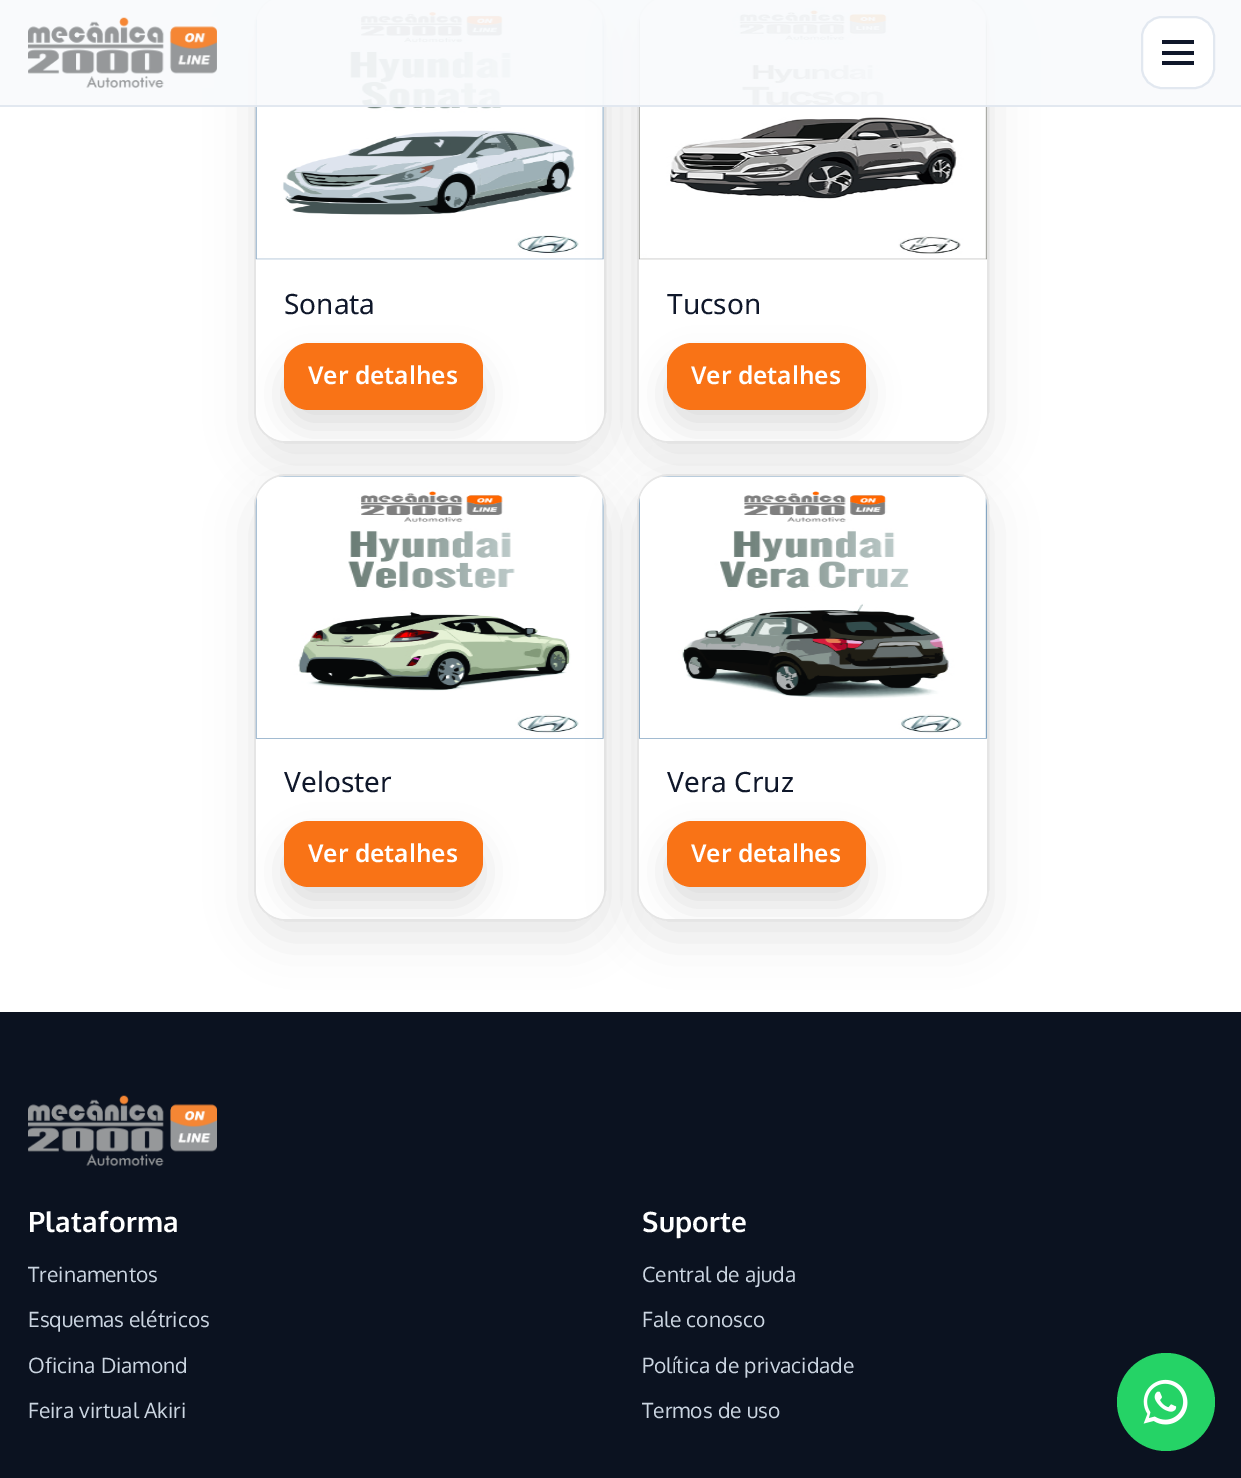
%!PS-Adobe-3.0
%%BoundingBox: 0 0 1241 1478
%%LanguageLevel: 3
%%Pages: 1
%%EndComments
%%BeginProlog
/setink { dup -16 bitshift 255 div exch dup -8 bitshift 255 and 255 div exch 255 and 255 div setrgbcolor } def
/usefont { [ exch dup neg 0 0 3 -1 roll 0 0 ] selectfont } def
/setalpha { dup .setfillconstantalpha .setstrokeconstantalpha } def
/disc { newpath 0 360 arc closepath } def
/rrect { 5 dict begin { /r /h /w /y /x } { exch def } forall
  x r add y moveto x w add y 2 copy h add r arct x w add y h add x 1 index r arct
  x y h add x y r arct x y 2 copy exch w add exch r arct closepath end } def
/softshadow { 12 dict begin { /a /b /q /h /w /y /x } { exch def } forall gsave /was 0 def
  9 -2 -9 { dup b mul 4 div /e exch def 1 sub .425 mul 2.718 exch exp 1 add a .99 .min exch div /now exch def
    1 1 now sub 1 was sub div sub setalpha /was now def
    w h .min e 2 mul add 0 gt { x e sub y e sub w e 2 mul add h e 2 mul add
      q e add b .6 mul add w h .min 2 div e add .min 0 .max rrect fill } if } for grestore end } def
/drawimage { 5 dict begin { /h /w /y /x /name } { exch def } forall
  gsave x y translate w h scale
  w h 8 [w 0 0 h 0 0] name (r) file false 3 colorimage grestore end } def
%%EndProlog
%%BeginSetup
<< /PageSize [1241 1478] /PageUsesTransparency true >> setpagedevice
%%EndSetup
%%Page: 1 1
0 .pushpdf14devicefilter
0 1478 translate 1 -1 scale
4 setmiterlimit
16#FFFFFF setink
0 0 1241 1478 rectfill
16#000000 setink
254 12 352 448 32 23 0.1 softshadow
16#FFFFFF setink
254 -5 352 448 32 rrect fill
0.1 setalpha
16#000000 setink
2 setlinewidth
255 -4 350 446 31 rrect stroke
1 setalpha
16#FFFFFF setink
256 259 moveto 604 259 lineto 604 411 lineto 604 427.5 590.5 441 574 441 curveto 286 441 lineto 269.5 441 256 427.5 256 411 curveto closepath fill
(img2.raw) 255 0 349 260 drawimage
16#000000 setink
637 12 352 448 32 23 0.1 softshadow
16#FFFFFF setink
637 -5 352 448 32 rrect fill
0.1 setalpha
16#000000 setink
638 -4 350 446 31 rrect stroke
1 setalpha
16#FFFFFF setink
639 259 moveto 987 259 lineto 987 411 lineto 987 427.5 973.5 441 957 441 curveto 669 441 lineto 652.5 441 639 427.5 639 411 curveto closepath fill
(img3.raw) 638 0 349 260 drawimage
0.92 setalpha
16#F8FAFC setink
0 0 1241 105 rectfill
1 setalpha
16#E2E8F0 setink
0 105 1241 2 rectfill
(img1.raw) 28 17 189 71 drawimage
16#FFFFFF setink
1142 17 72 71 20 rrect gsave fill grestore
16#E2E8F0 setink
stroke
[
    [1162 51 32 4 16#0F172A]
    [1162 40 32 4 16#0F172A]
    [1162 61 32 4 16#0F172A]
] { aload pop setink rectfill } forall
gsave
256 -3 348 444 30 rrect clip newpath
16#000000 setink
284 361 199 66 25 16 0.12 softshadow
grestore
/NotoSans-Regular 28 usefont
284 314 moveto (Sonata) show
16#F97316 setink
284 343 199 67 25 rrect fill
/NotoSans-SemiBold 24.5 usefont
16#FFFFFF setink
308 384 moveto (Ver detalhes) show
gsave
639 -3 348 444 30 rrect clip newpath
16#000000 setink
667 361 199 66 25 16 0.12 softshadow
grestore
/NotoSans-Regular 28 usefont
16#0F172A setink
667 314 moveto (Tucson) show
16#F97316 setink
667 343 199 67 25 rrect fill
/NotoSans-SemiBold 24.5 usefont
16#FFFFFF setink
691 384 moveto (Ver detalhes) show
16#000000 setink
254 492 352 446 32 23 0.1 softshadow
16#FFFFFF setink
254 474 352 447 32 rrect fill
0.1 setalpha
16#000000 setink
255 475 350 445 31 rrect stroke
1 setalpha
(img4.raw) 255 476 349 263 drawimage
16#FFFFFF setink
256 739 moveto 604 739 lineto 604 889 lineto 604 905.5 590.5 919 574 919 curveto 286 919 lineto 269.5 919 256 905.5 256 889 curveto closepath fill
gsave
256 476 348 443 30 rrect clip newpath
16#000000 setink
284 838 199 67 25 16 0.12 softshadow
grestore
/NotoSans-Regular 28 usefont
16#0F172A setink
284 792 moveto (Veloster) show
16#F97316 setink
284 821 199 66 25 rrect fill
/NotoSans-SemiBold 24.5 usefont
16#FFFFFF setink
308 862 moveto (Ver detalhes) show
16#000000 setink
637 492 352 446 32 23 0.1 softshadow
16#FFFFFF setink
637 474 352 447 32 rrect fill
0.1 setalpha
16#000000 setink
638 475 350 445 31 rrect stroke
1 setalpha
(img5.raw) 638 476 349 263 drawimage
16#FFFFFF setink
639 739 moveto 987 739 lineto 987 889 lineto 987 905.5 973.5 919 957 919 curveto 669 919 lineto 652.5 919 639 905.5 639 889 curveto closepath fill
gsave
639 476 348 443 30 rrect clip newpath
16#000000 setink
667 838 199 67 25 16 0.12 softshadow
grestore
/NotoSans-Regular 28 usefont
16#0F172A setink
667 792 moveto (Vera Cruz) show
16#F97316 setink
667 821 199 66 25 rrect fill
/NotoSans-SemiBold 24.5 usefont
16#FFFFFF setink
691 862 moveto (Ver detalhes) show
16#0B1220 setink
0 1012 1241 466 rectfill
(img6.raw) 28 1095 189 71 drawimage
/Oxygen-Bold 28 usefont
16#FFFFFF setink
28 1232 moveto 0.25 0 (Plataforma) ashow
/Oxygen-Regular 21 usefont
16#CBD5E1 setink
[
    [(Treinamentos) 28 1282]
    [(Esquemas elétricos) 28 1327]
    [(Oficina Diamond) 28 1373]
    [(Feira virtual Akiri) 28 1418]
] { aload pop moveto show } forall
/Oxygen-Bold 28 usefont
16#FFFFFF setink
642 1232 moveto 0.25 0 (Suporte) ashow
/Oxygen-Regular 21 usefont
16#CBD5E1 setink
[
    [(Central de ajuda) 642 1282]
    [(Fale conosco) 642 1327]
    [(Política de privacidade) 642 1373]
    [(Termos de uso) 642 1418]
] { aload pop moveto show } forall
16#25D366 setink
1166 1402 49 disc fill
(img7.raw) 1143 1379 45 46 drawimage
.poppdf14devicefilter showpage
%%EOF
